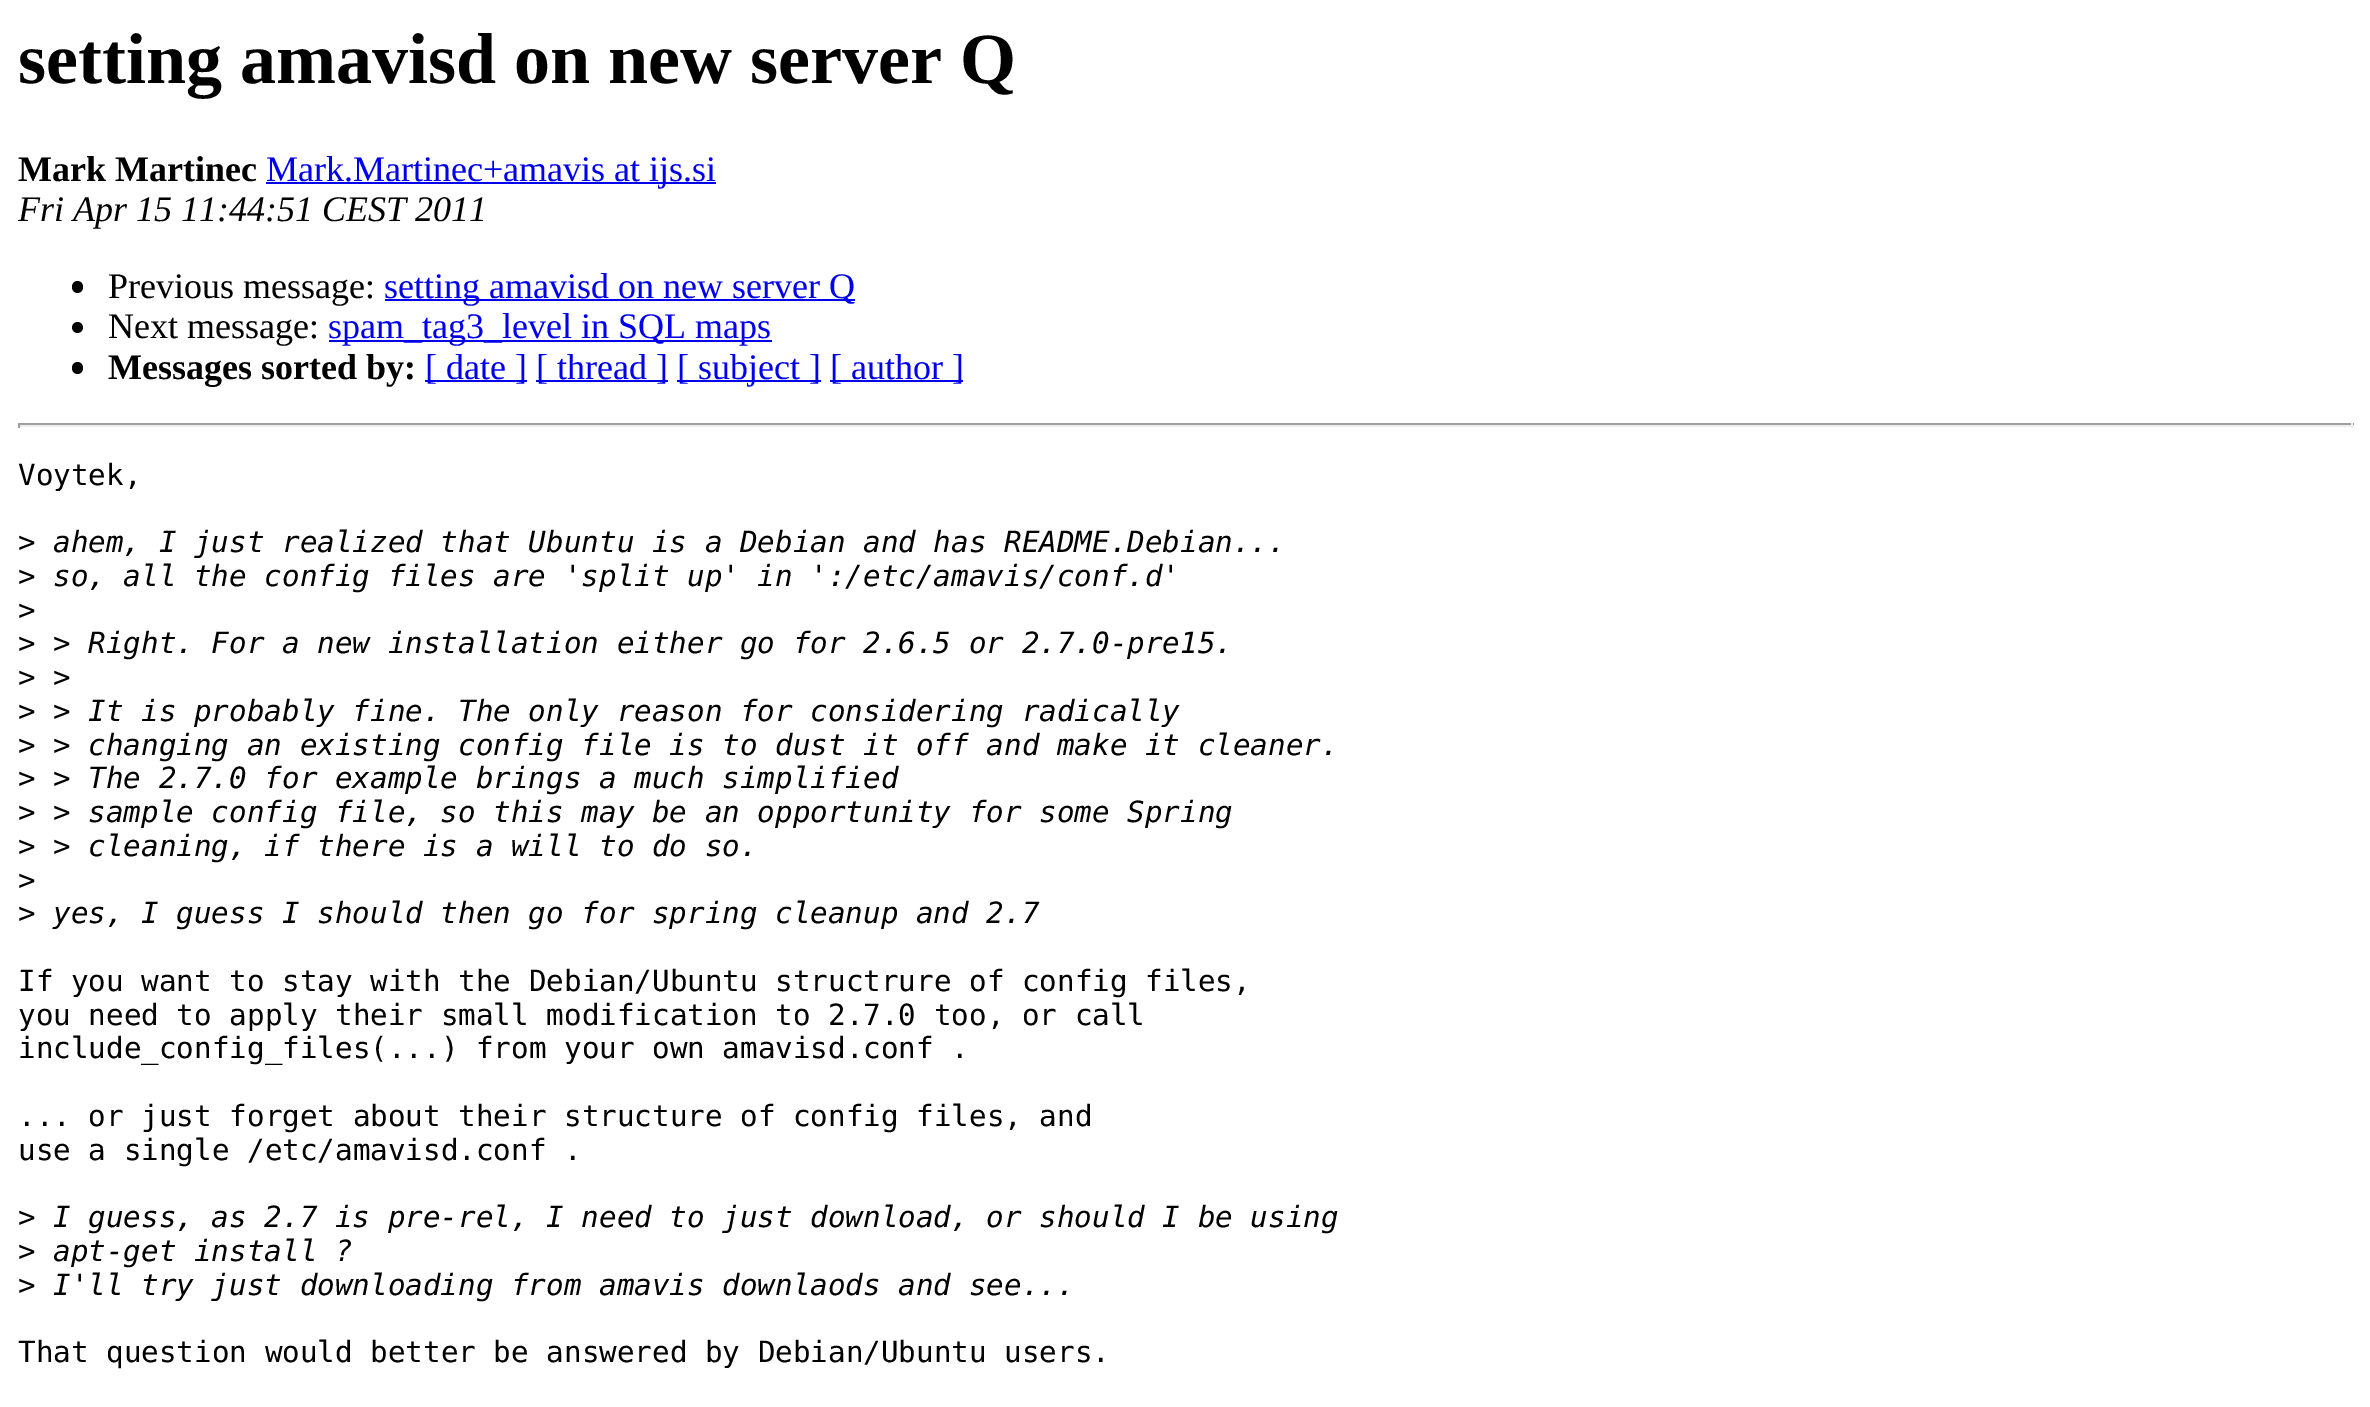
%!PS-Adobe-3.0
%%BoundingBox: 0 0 2370 1407
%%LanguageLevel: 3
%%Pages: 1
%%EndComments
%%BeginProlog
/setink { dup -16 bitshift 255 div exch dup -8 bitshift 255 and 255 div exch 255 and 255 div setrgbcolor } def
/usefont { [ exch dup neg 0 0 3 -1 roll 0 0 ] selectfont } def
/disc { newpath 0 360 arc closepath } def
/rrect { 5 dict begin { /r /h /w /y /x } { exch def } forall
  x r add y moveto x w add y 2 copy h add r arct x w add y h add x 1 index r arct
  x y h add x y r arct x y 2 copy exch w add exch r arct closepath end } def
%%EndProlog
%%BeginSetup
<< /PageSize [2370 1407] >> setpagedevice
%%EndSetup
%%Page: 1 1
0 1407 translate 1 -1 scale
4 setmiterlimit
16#FFFFFF setink
0 0 2370 1407 rectfill
/LiberationSerif-Bold 72 usefont
16#000000 setink
18 83 moveto (setting amavisd on new server Q) show
/LiberationSerif-Bold 36 usefont
18 181 moveto (Mark Martinec) show
16#0000EE setink
266 182 450 2 rectfill
/LiberationSerif-Regular 36 usefont
266 181 moveto (Mark.Martinec+amavis at ijs.si) show
/LiberationSerif-Italic 36 usefont
16#000000 setink
18 221 moveto (Fri Apr 15 11:44:51 CEST 2011) show
72 281 11 12 5.5 rrect fill
/LiberationSerif-Regular 36 usefont
108 298 moveto (Previous message:) show
16#0000EE setink
385 299 470 2 rectfill
384 298 moveto (setting amavisd on new server Q) show
16#000000 setink
77.5 327.5 5.5 disc fill
108 338 moveto (Next message:) show
16#0000EE setink
329 340 443 2 rectfill
328 338 moveto (spam_tag3_level in SQL maps) show
16#000000 setink
72 362 11 12 5.5 rrect fill
/LiberationSerif-Bold 36 usefont
108 379 moveto (Messages sorted by:) show
16#0000EE setink
425 380 102 2 rectfill
/LiberationSerif-Regular 36 usefont
425 379 moveto ([ date ]) show
536 380 132 2 rectfill
536 379 moveto ([ thread ]) show
677 380 144 2 rectfill
677 379 moveto ([ subject ]) show
830 380 133 2 rectfill
830 379 moveto ([ author ]) show
[
    [18 423 2336 2 16#9F9F9F]
    [2351 423 2 5 16#EEEEEE]
    [18 425 2336 2 16#EEEEEE]
    [18 423 2 5 16#9F9F9F]
] { aload pop setink rectfill } forall
/DejaVuSansMono-Regular 29.25 usefont
16#000000 setink
18 485 moveto (Voytek,) show
18 552 moveto (>) show
/DejaVuSansMono-Italic 29.25 usefont
53 552 moveto (ahem, I just realized that Ubuntu is a Debian and has README.Debian...) show
/DejaVuSansMono-Regular 29.25 usefont
18 586 moveto (>) show
/DejaVuSansMono-Italic 29.25 usefont
53 586 moveto (so, all the config files are 'split up' in ':/etc/amavis/conf.d') show
/DejaVuSansMono-Regular 29.25 usefont
18 620 moveto (>) show
18 653 moveto (>) show
/DejaVuSansMono-Italic 29.25 usefont
53 653 moveto (> Right. For a new installation either go for 2.6.5 or 2.7.0-pre15.) show
/DejaVuSansMono-Regular 29.25 usefont
18 687 moveto (>) show
/DejaVuSansMono-Italic 29.25 usefont
53 687 moveto (>) show
/DejaVuSansMono-Regular 29.25 usefont
18 721 moveto (>) show
/DejaVuSansMono-Italic 29.25 usefont
53 721 moveto (> It is probably fine. The only reason for considering radically) show
/DejaVuSansMono-Regular 29.25 usefont
18 755 moveto (>) show
/DejaVuSansMono-Italic 29.25 usefont
53 755 moveto (> changing an existing config file is to dust it off and make it cleaner.) show
/DejaVuSansMono-Regular 29.25 usefont
18 788 moveto (>) show
/DejaVuSansMono-Italic 29.25 usefont
53 788 moveto (> The 2.7.0 for example brings a much simplified) show
/DejaVuSansMono-Regular 29.25 usefont
18 822 moveto (>) show
/DejaVuSansMono-Italic 29.25 usefont
53 822 moveto (> sample config file, so this may be an opportunity for some Spring) show
/DejaVuSansMono-Regular 29.25 usefont
18 856 moveto (>) show
/DejaVuSansMono-Italic 29.25 usefont
53 856 moveto (> cleaning, if there is a will to do so.) show
/DejaVuSansMono-Regular 29.25 usefont
18 890 moveto (>) show
18 923 moveto (>) show
/DejaVuSansMono-Italic 29.25 usefont
53 923 moveto (yes, I guess I should then go for spring cleanup and 2.7) show
/DejaVuSansMono-Regular 29.25 usefont
[
    [(If you want to stay with the Debian/Ubuntu structrure of config files,) 18 991]
    [(you need to apply their small modification to 2.7.0 too, or call) 18 1025]
    [(include_config_files\(...\) from your own amavisd.conf .) 18 1058]
    [(... or just forget about their structure of config files, and) 18 1126]
    [(use a single /etc/amavisd.conf .) 18 1160]
    [(>) 18 1227]
] { aload pop moveto show } forall
/DejaVuSansMono-Italic 29.25 usefont
53 1227 moveto (I guess, as 2.7 is pre-rel, I need to just download, or should I be using) show
/DejaVuSansMono-Regular 29.25 usefont
18 1261 moveto (>) show
/DejaVuSansMono-Italic 29.25 usefont
53 1261 moveto (apt-get install ?) show
/DejaVuSansMono-Regular 29.25 usefont
18 1295 moveto (>) show
/DejaVuSansMono-Italic 29.25 usefont
53 1295 moveto (I'll try just downloading from amavis downlaods and see...) show
/DejaVuSansMono-Regular 29.25 usefont
18 1362 moveto (That question would better be answered by Debian/Ubuntu users.) show
showpage
%%EOF
